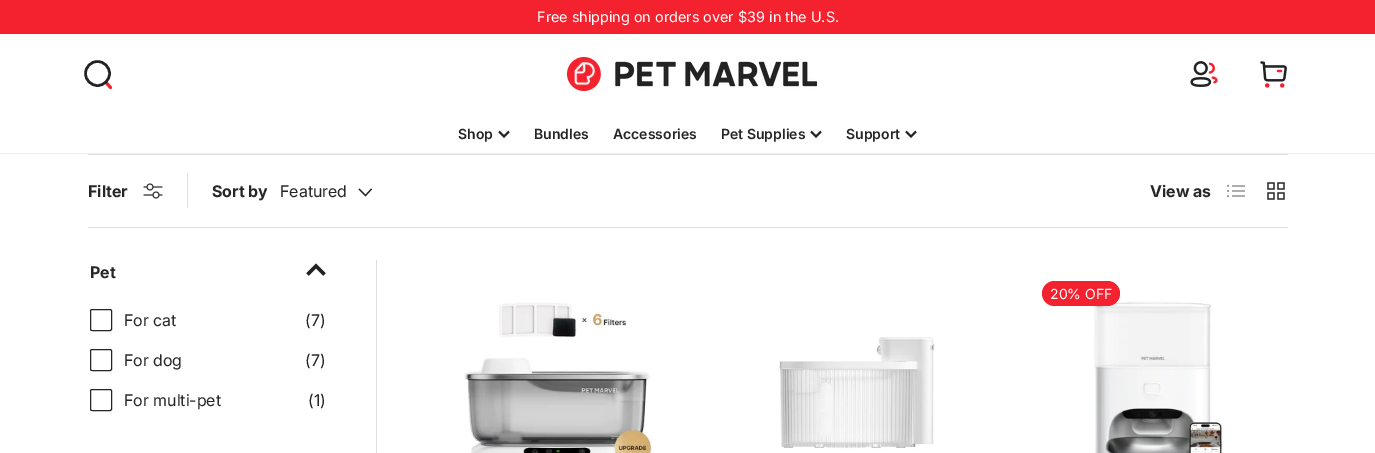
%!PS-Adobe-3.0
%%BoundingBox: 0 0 1375 453
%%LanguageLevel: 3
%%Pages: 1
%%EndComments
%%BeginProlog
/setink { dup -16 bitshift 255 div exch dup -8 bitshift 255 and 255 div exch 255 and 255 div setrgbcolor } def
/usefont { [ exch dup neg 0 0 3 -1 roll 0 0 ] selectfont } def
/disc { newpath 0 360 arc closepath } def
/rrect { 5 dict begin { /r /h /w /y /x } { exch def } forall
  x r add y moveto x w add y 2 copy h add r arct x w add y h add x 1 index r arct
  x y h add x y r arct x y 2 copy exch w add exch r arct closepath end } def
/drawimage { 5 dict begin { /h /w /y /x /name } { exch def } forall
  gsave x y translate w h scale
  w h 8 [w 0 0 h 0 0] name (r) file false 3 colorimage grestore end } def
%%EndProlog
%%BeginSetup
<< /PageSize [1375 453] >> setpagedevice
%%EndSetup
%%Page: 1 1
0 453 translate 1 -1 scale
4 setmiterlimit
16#FFFFFF setink
0 0 1375 453 rectfill
16#F3222E setink
0 0 1375 34 rectfill
/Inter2-Regular 14.4 usefont
16#FFFFFF setink
537 22 moveto (Free shipping on orders over $39 in the U.S.) show
16#EEEEEE setink
0 153 1375 1 rectfill
16#F3222E setink
3 setlinewidth
1 setlinecap
1 setlinejoin
106 82.5 moveto 110.5 87.5 lineto stroke
16#222222 setink
2.5 setlinewidth
0 setlinecap
0 setlinejoin
97.5 73.5 12 disc stroke
(img1.raw) 567 57 250 34 drawimage
(img2.raw) 1190 61 28 26 drawimage
(img3.raw) 1260 61 27 27 drawimage
/Inter-SemiBold 14 usefont
16#262626 setink
458 139 moveto (Shop) show
16#222222 setink
2 setlinewidth
499 131.5 moveto 504 136.5 lineto 509 131.5 lineto stroke
16#262626 setink
[
    [(Bundles) 534 139]
    [(Accessories) 613 139]
    [(Pet Supplies) 721 139]
] { aload pop moveto show } forall
16#222222 setink
811 131.5 moveto 816 136.5 lineto 821 131.5 lineto stroke
16#262626 setink
846 139 moveto (Support) show
16#222222 setink
906 131.5 moveto 911 136.5 lineto 916 131.5 lineto stroke
16#DEDEDE setink
88 154 1200 1 rectfill
88 227 1200 1 rectfill
/Inter-Bold 16 usefont
16#262626 setink
88 197 moveto (Filter) show
(img4.raw) 143 183 20 16 drawimage
16#DEDEDE setink
187 173 1 35 rectfill
16#262626 setink
212 197 moveto (Sort by) show
/Inter-Regular 16 usefont
280 197 moveto (Featured) show
1.2 setlinewidth
371.5 189 moveto 365.5 195.5 lineto 359 189 lineto stroke
/Inter-Bold 16 usefont
1150 197 moveto (View as) show
(img5.raw) 1227 184 18 14 drawimage
(img6.raw) 1267 182 18 18 drawimage
16#DEDEDE setink
376 260 1 193 rectfill
16#262626 setink
90 278 moveto (Pet) show
16#222222 setink
3.3 setlinewidth
307.5 274.5 moveto 316 266 lineto 324.5 274.5 lineto stroke
16#262626 setink
1 setlinewidth
90.5 309.5 21 21 1.5 rrect stroke
/Inter-Regular 16 usefont
124 326 moveto (For cat) show
305 326 moveto (\(7\)) show
90.5 349.5 21 21 1.5 rrect stroke
124 366 moveto (For dog) show
305 366 moveto (\(7\)) show
90.5 389.5 21 21 1.5 rrect stroke
124 406 moveto (For multi-pet) show
308 406 moveto (\(1\)) show
(img7.raw) 1093 301 131 152 drawimage
16#F3222E setink
1042 281 78 25 12.5 rrect fill
/Inter2-Regular 14 usefont
16#FFFFFF setink
1050 299 moveto (20% OFF) show
(img8.raw) 464 302 188 151 drawimage
(img9.raw) 779 337 156 112 drawimage
showpage
%%EOF
